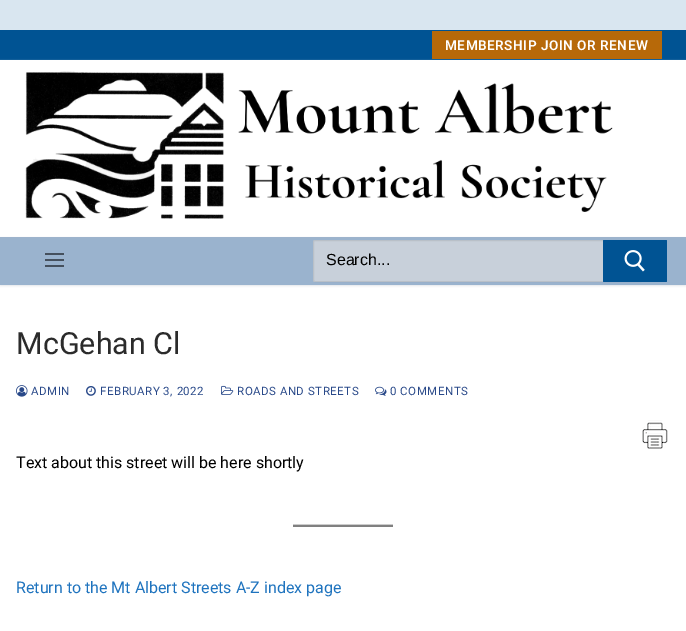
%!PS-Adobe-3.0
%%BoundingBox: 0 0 686 631
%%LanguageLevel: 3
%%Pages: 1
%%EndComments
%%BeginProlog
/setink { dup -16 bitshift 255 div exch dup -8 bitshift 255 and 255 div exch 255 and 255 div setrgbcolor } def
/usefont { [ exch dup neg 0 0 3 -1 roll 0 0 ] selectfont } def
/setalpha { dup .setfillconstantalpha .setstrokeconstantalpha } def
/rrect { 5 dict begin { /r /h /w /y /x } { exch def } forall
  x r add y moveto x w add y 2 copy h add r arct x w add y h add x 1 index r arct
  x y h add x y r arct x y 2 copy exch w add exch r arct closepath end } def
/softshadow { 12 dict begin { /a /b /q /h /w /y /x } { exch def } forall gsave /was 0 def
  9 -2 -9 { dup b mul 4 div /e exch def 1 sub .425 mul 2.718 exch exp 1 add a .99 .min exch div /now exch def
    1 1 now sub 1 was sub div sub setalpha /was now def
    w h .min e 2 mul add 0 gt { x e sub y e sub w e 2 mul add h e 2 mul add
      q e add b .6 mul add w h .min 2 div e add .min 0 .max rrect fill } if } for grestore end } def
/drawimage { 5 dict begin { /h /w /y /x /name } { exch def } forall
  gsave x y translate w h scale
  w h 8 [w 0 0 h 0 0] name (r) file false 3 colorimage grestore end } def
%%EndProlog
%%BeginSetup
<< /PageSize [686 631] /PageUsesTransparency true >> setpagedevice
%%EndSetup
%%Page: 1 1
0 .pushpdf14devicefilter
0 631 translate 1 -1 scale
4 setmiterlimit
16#D9E6F0 setink
0 0 686 631 rectfill
16#005393 setink
0 30 686 30 rectfill
16#E1E5EA setink
0 61 686 177 0 1 1 softshadow
16#B76909 setink
432 31 230 28 rectfill
/Roboto-SemiBold 13.6 usefont
16#FFFFFF setink
445 50 moveto 0.5 0 (MEMBERSHIP JOIN OR RENEW) ashow
0 60 686 177 rectfill
(img1.raw) 25 71 588 148 drawimage
0 285 686 346 rectfill
gsave
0 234 moveto 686 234 lineto 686 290 lineto 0 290 lineto closepath 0 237 moveto 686 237 lineto 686 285 lineto 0 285 lineto closepath eoclip newpath
16#E1E5EA setink
0 238 686 48 0 1 1 softshadow
grestore
0.32 setalpha
[
    [0 237 686 48 16#154687]
] { aload pop setink rectfill } forall
1 setalpha
[
    [45 259 19 2 16#45505D]
    [45 253 19 2 16#45505D]
    [45 265 19 2 16#45505D]
] { aload pop setink rectfill } forall
16#C8D0DA setink
313 240 330 42 2 rrect fill
0.2 setalpha
16#7F7F7F setink
313.5 240.5 329 41 1.5 rrect stroke
/LiberationSans-Regular 16 usefont
1 setalpha
16#000000 setink
326 265 moveto (Search...) show
16#005393 setink
603 240 64 42 1 rrect fill
(img2.raw) 624 250 21 22 drawimage
/Roboto-Regular 30.5 usefont
16#2B2B2B setink
16 354 moveto (McGehan Cl) show
(img3.raw) 16 385 12 12 drawimage
/Roboto-Regular 11.5 usefont
16#294989 setink
31 395 moveto 0.5 0 (ADMIN) ashow
(img4.raw) 86 386 10 10 drawimage
100 395 moveto 0.5 0 (FEBRUARY 3, 2022) ashow
(img5.raw) 221 385 13 10 drawimage
237 395 moveto 0.5 0 (ROADS AND STREETS) ashow
(img6.raw) 375 386 12 10 drawimage
390 395 moveto 0.5 0 (0 COMMENTS) ashow
(img7.raw) 642 420 26 29 drawimage
/Roboto-Regular 16 usefont
16#000000 setink
16 468 moveto (Text about this street will be here shortly) show
16#CCCCCC setink
293 524 100 1 rectfill
16#808080 setink
293 525 100 2 rectfill
16#1E73BE setink
16 593 moveto (Return to the Mt Albert Streets A-Z index page) show
.poppdf14devicefilter showpage
%%EOF
